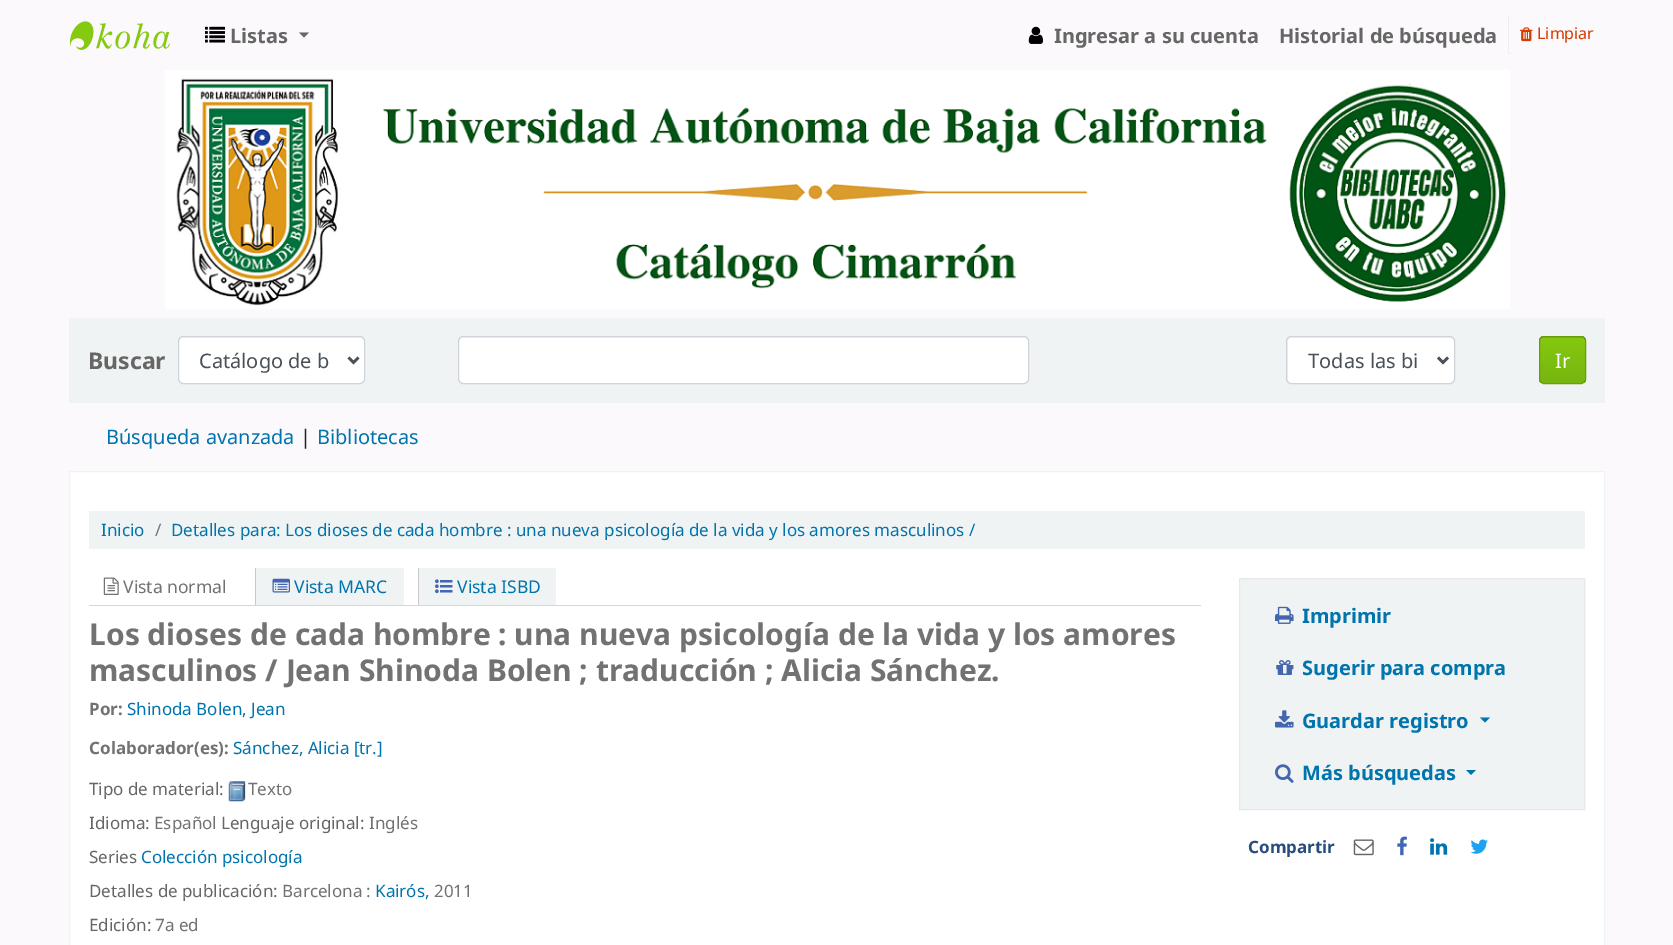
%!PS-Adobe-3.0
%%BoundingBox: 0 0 1673 945
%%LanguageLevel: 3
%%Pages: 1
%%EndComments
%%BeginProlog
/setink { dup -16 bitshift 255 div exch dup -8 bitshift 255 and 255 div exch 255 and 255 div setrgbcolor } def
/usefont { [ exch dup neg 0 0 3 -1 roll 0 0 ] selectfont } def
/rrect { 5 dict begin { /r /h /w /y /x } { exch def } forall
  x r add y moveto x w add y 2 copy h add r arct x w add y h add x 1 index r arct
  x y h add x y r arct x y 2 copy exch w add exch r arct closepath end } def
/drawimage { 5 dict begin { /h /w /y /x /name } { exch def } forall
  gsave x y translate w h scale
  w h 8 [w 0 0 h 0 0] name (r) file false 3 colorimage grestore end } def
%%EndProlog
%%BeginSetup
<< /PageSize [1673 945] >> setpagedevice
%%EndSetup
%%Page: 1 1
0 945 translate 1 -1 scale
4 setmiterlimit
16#FCF9FC setink
0 0 1673 945 rectfill
(img1.raw) 70 21 100 29 drawimage
(img2.raw) 205 26 20 17 drawimage
/NotoSans-Bold 20 usefont
16#666666 setink
230 43 moveto (Listas) show
299 32.5 moveto 309 32.5 lineto 304 37.5 lineto closepath fill
(img3.raw) 1028 26 15 18 drawimage
1054 43 moveto (Ingresar a su cuenta) show
1279 43 moveto (Historial de búsqueda) show
[
    [1508 16 3 1 16#EEEEEE]
    [1509 16 1 1 16#FCF9FC]
    [1508 53 3 1 16#EEEEEE]
    [1508 16 1 38 16#EEEEEE]
] { aload pop setink rectfill } forall
(img4.raw) 1520 27 13 15 drawimage
/NotoSans-Regular 16 usefont
16#D43C00 setink
1537 39 moveto (Limpiar) show
(img5.raw) 165 70 1345 239 drawimage
16#F0F3F3 setink
69 318 1536 85 rectfill
/NotoSans-Bold 23 usefont
16#666666 setink
88 369 moveto (Buscar) show
16#FFFFFF setink
179 338 185 45 4 rrect fill
16#CED4DA setink
178.5 336.5 186 47 4.5 rrect stroke
16#495057 setink
2.5 setlinewidth
348.5 357.5 moveto 353.5 362.5 lineto 358.5 357.5 lineto stroke
/NotoSans-Regular 20 usefont
199 368 moveto (Catálogo de b) show
16#FFFFFF setink
459 338 569 45 4 rrect fill
16#CED4DA setink
1 setlinewidth
458.5 336.5 570 47 4.5 rrect stroke
16#FFFFFF setink
1288 338 166 45 4 rrect fill
16#CED4DA setink
1286.5 336.5 168 47 4.5 rrect stroke
16#495057 setink
2.5 setlinewidth
1438 357.5 moveto 1443 362.5 lineto 1448 357.5 lineto stroke
1308 368 moveto (Todas las bi) show
gsave
1539 336 47 48 5 rrect clip newpath
gsave 1539 336 moveto 1586 336 lineto 1586 338 lineto 1539 338 lineto closepath clip newpath
<< /ShadingType 2 /ColorSpace /DeviceRGB /Coords [1563 293 1563 338] /Extend [true true] /Function << /FunctionType 2 /Domain [0 1] /C0 [0.518 0.784 0.063] /C1 [0.467 0.71 0.059] /N 1 >> >> shfill grestore
gsave 1539 338 moveto 1586 338 lineto 1586 383 lineto 1539 383 lineto closepath clip newpath
<< /ShadingType 2 /ColorSpace /DeviceRGB /Coords [1563 338 1563 383] /Extend [true true] /Function << /FunctionType 2 /Domain [0 1] /C0 [0.518 0.784 0.063] /C1 [0.467 0.71 0.059] /N 1 >> >> shfill grestore
grestore
16#689D0D setink
1 setlinewidth
1539.5 336.5 46 47 4.5 rrect stroke
16#FFFFFF setink
1555 368 moveto (Ir) show
16#0074AD setink
106 444 moveto (Búsqueda avanzada) show
16#212529 setink
300 444 moveto (|) show
16#0074AD setink
317 444 moveto (Bibliotecas) show
16#FFFFFF setink
69.5 471.5 moveto 1604.5 471.5 lineto 1604.5 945.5 lineto 69.5 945.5 lineto closepath gsave fill grestore
16#F0F3F3 setink
stroke
89 511 1496 38 rectfill
/NotoSans-Regular 17 usefont
16#0074AD setink
101 536 moveto (Inicio) show
16#6C757D setink
155 536 moveto (/) show
16#0074AD setink
171 536 moveto (Detalles para: Los dioses de cada hombre : una nueva psicología de la vida y los amores masculinos /) show
16#D6D6D6 setink
89 605 1112 1 rectfill
(img6.raw) 103 577 16 18 drawimage
/NotoSans-Regular 17.5 usefont
16#727272 setink
123 593 moveto (Vista normal) show
16#F0F3F3 setink
256 568 148 37 rectfill
16#C9C9C9 setink
255 568 1 37 rectfill
(img7.raw) 272 578 18 15 drawimage
16#0074AD setink
294 593 moveto (Vista MARC) show
16#F0F3F3 setink
419 568 137 37 rectfill
16#C9C9C9 setink
418 568 1 37 rectfill
(img8.raw) 435 579 18 15 drawimage
16#0074AD setink
457 593 moveto (Vista ISBD) show
/NotoSans-Bold 30 usefont
16#727272 setink
89 645 moveto (Los dioses de cada hombre : una nueva psicología de la vida y los amores) show
89 681 moveto (masculinos / Jean Shinoda Bolen ; traducción ; Alicia Sánchez.) show
/NotoSans-Bold 17 usefont
89 715 moveto (Por:) show
/NotoSans-Regular 17 usefont
16#0074AD setink
127 715 moveto (Shinoda Bolen, Jean) show
/NotoSans-Bold 17 usefont
16#727272 setink
89 754 moveto (Colaborador\(es\):) show
/NotoSans-Regular 17 usefont
16#0074AD setink
233 754 moveto (Sánchez, Alicia [tr.]) show
16#666666 setink
89 795 moveto (Tipo de material:) show
(img9.raw) 228 781 18 21 drawimage
16#727272 setink
248 795 moveto (Texto) show
16#666666 setink
89 829 moveto (Idioma:) show
16#727272 setink
154 829 moveto (Español) show
16#666666 setink
221 829 moveto (Lenguaje original:) show
16#727272 setink
369 829 moveto (Inglés) show
16#666666 setink
89 863 moveto (Series) show
16#0074AD setink
141 863 moveto (Colección psicología) show
16#666666 setink
89 897 moveto (Detalles de publicación:) show
16#727272 setink
282 897 moveto (Barcelona :) show
16#0074AD setink
375 897 moveto (Kairós,) show
16#727272 setink
434 897 moveto (2011) show
16#666666 setink
89 931 moveto (Edición:) show
16#727272 setink
155 931 moveto (7a ed) show
16#F0F3F3 setink
1239.5 578.5 moveto 1584.5 578.5 lineto 1584.5 809.5 lineto 1239.5 809.5 lineto closepath gsave fill grestore
16#E8E8E8 setink
stroke
(img10.raw) 1275 606 19 18 drawimage
/NotoSans-Bold 20 usefont
16#0074AD setink
1302 623 moveto (Imprimir) show
(img11.raw) 1276 660 18 15 drawimage
1302 675 moveto (Sugerir para compra) show
(img12.raw) 1275 710 19 18 drawimage
1302 728 moveto (Guardar registro) show
1480 717.5 moveto 1490 717.5 lineto 1485 722.5 lineto closepath fill
(img13.raw) 1275 764 19 19 drawimage
1302 780 moveto (Más búsquedas) show
1466 770 moveto 1476 770 lineto 1471 775 lineto closepath fill
/NotoSans-Bold 17 usefont
16#274D7F setink
1248 853 moveto (Compartir) show
(img14.raw) 1353 839 21 17 drawimage
(img15.raw) 1397 836 10 20 drawimage
(img16.raw) 1430 838 18 17 drawimage
(img17.raw) 1470 839 18 15 drawimage
showpage
%%EOF
